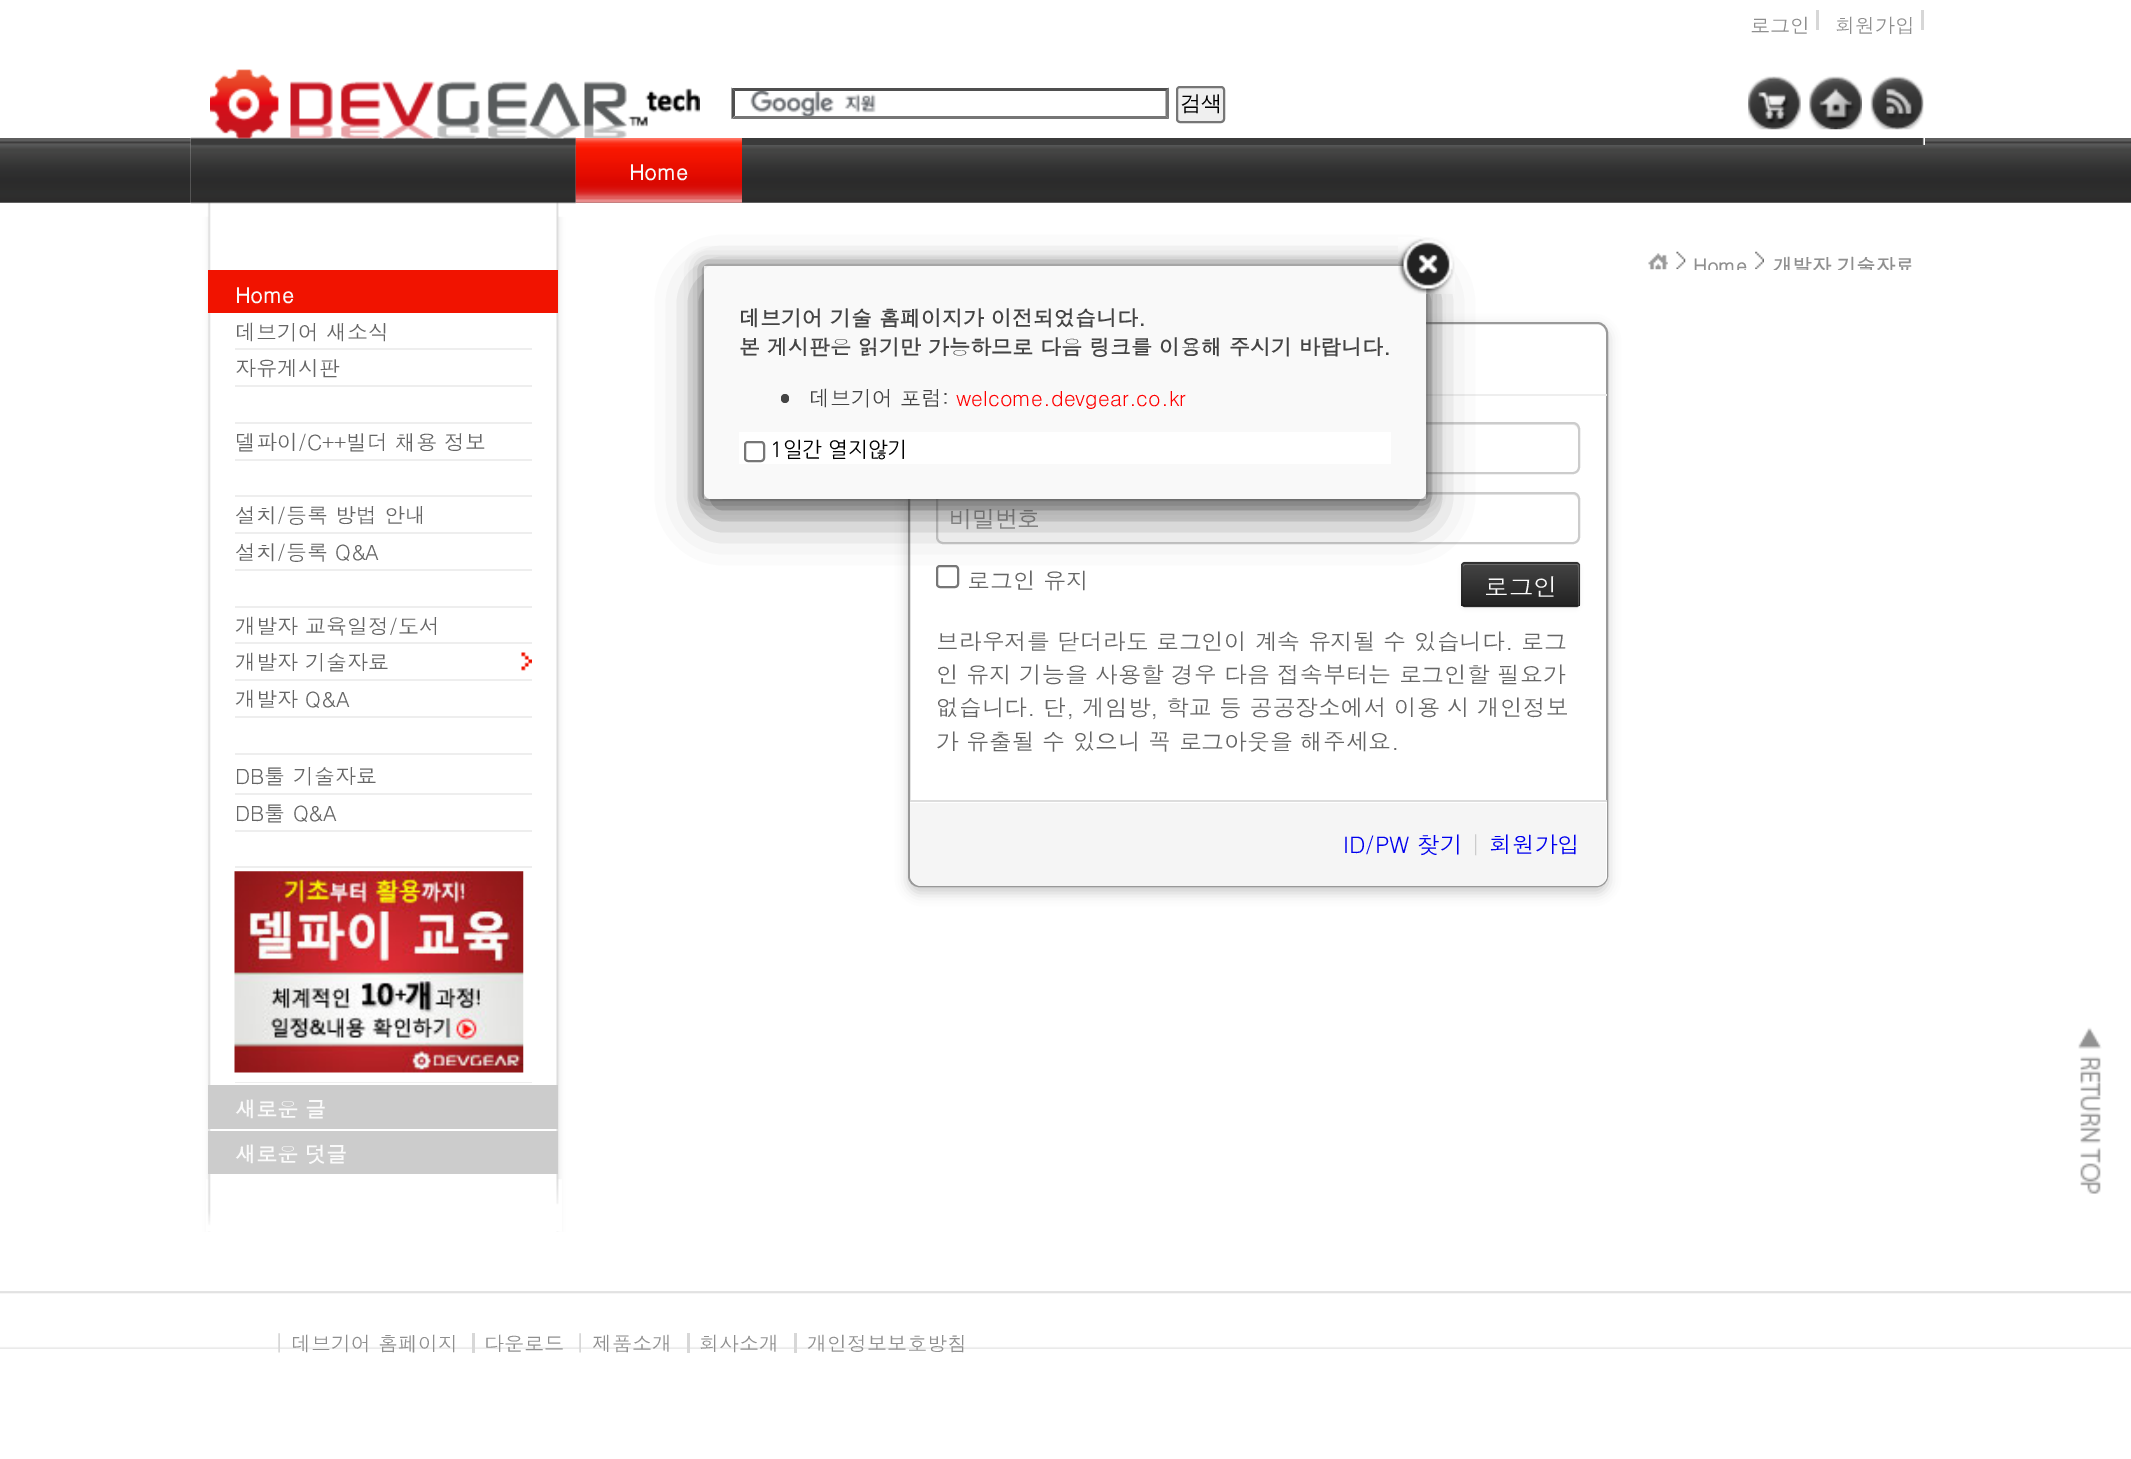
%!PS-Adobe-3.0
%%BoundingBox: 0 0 2131 1459
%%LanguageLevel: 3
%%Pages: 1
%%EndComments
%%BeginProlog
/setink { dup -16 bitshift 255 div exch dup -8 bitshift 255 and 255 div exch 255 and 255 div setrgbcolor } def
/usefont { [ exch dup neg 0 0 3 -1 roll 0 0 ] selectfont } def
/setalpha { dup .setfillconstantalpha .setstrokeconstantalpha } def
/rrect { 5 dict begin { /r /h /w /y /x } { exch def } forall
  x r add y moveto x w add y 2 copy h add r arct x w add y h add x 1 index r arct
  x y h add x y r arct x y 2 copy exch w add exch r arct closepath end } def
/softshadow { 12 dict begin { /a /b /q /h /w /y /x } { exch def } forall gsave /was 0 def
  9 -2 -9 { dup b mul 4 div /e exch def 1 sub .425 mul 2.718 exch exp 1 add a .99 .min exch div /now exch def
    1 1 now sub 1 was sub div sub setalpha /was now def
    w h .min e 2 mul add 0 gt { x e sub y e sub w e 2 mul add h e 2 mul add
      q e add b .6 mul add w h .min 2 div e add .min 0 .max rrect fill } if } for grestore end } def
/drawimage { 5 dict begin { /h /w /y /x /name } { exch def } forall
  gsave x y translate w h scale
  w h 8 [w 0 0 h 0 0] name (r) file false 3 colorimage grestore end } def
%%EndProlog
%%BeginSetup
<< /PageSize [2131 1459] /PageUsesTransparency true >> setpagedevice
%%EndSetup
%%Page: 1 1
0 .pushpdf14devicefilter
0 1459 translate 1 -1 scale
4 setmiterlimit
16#FFFFFF setink
0 0 2131 1459 rectfill
(img1.raw) 0 138 2131 65 drawimage
(img2.raw) 190 0 386 1232 drawimage
(img3.raw) 575 138 1350 7 drawimage
(img4.raw) 190 0 386 217 drawimage
(img5.raw) 210 69 490 70 drawimage
/Dotum-Regular 20 usefont
16#8F8F8F setink
1750 33 moveto (로그인) show
16#D7D7D7 setink
1816 10 3 20 rectfill
16#8F8F8F setink
1835 33 moveto (회원가입) show
16#D7D7D7 setink
1921 10 3 20 rectfill
(img6.raw) 750 91 126 25 drawimage
16#4F4F4F setink
732 88 moveto 1169 88 lineto 1166 91 lineto 735 91 lineto closepath fill
16#767676 setink
1169 87.5 moveto 1169 119 lineto 1165.5 115.5 lineto 1165.5 91 lineto closepath fill
1169 119 moveto 732 119 lineto 735 116 lineto 1166 116 lineto closepath fill
16#4F4F4F setink
731.5 119 moveto 731.5 87.5 lineto 735 91 lineto 735 115.5 lineto closepath fill
16#EFEFEF setink
1177 87 47 35 3 rrect gsave fill grestore
16#767676 setink
2 setlinewidth
stroke
/WenQuanYiZenHei-Medium 21 usefont
16#000000 setink
1180 110 moveto (검색) show
(img7.raw) 1748 76 53 54 drawimage
(img8.raw) 1809 76 53 54 drawimage
(img9.raw) 1870 76 54 54 drawimage
(img10.raw) 575 138 167 65 drawimage
/Dotum-Bold 21 usefont
16#FAFAFA setink
629 180 moveto (Home) show
(img11.raw) 1648 253 20 17 drawimage
(img12.raw) 1676 251 10 19 drawimage
gsave
1561 217 362 53 rectclip
/Dotum-Bold 19.25 usefont
16#8F8F8F setink
1693 273 moveto (Home) show
grestore
(img13.raw) 1755 251 9 19 drawimage
gsave
1561 217 362 53 rectclip
/Dotum-Bold 19.25 usefont
16#8F8F8F setink
1773 273 moveto (개발자 기술자료) show
grestore
16#F11300 setink
208 270 350 43 rectfill
16#FAFAFA setink
235 303 moveto (Home) show
16#EEEEEE setink
235 348 297 2 rectfill
/Dotum-Regular 21 usefont
16#666666 setink
235 340 moveto (데브기어 새소식) show
16#EEEEEE setink
235 385 297 2 rectfill
16#666666 setink
235 376 moveto (자유게시판) show
16#EEEEEE setink
235 422 297 2 rectfill
235 459 297 2 rectfill
16#666666 setink
235 450 moveto (델파이/C++빌더 채용 정보) show
16#EEEEEE setink
235 495 297 2 rectfill
235 532 297 2 rectfill
16#666666 setink
235 523 moveto (설치/등록 방법 안내) show
16#EEEEEE setink
235 569 297 2 rectfill
16#666666 setink
235 560 moveto (설치/등록 Q&A) show
16#EEEEEE setink
235 606 297 2 rectfill
235 642 297 2 rectfill
16#666666 setink
235 634 moveto (개발자 교육일정/도서) show
(img14.raw) 521 652 11 19 drawimage
16#EEEEEE setink
235 679 297 2 rectfill
16#666666 setink
235 670 moveto (개발자 기술자료) show
16#EEEEEE setink
235 753 297 2 rectfill
16#666666 setink
235 707 moveto (개발자 Q&A) show
16#EEEEEE setink
235 716 297 2 rectfill
235 793 297 2 rectfill
16#666666 setink
235 784 moveto (DB툴 기술자료) show
16#EEEEEE setink
235 866 297 2 rectfill
16#666666 setink
235 821 moveto (DB툴 Q&A) show
16#EEEEEE setink
235 830 297 2 rectfill
235 1082 297 1 rectfill
(img15.raw) 234 871 290 202 drawimage
16#CCCCCC setink
208 1085 350 44 rectfill
/Dotum-Bold 21 usefont
16#FAFAFA setink
235 1117 moveto (새로운 글) show
16#CCCCCC setink
208 1131 350 43 rectfill
16#FAFAFA setink
235 1162 moveto (새로운 덧글) show
16#CCCCCC setink
908 327 700 566 11 6 1 softshadow
16#FFFFFF setink
909 323 698 563 10 rrect gsave fill grestore
16#999999 setink
stroke
16#EEEEEE setink
1426 394 181 2 rectfill
16#ECECEC setink
943 425 moveto 1573 425 lineto 1576 425 1578 428 1578 430 curveto 1578 469 lineto 1577 472 lineto 1578 471 1579 469 1579 468 curveto 1579 429 lineto 1579 426 1577 424 1574 424 curveto 943 424 lineto 940 424 938 426 938 429 curveto 938 430 lineto 938 428 940 425 943 425 curveto closepath fill
16#CCCCCC setink
937 423 642 50 6 rrect stroke
16#ECECEC setink
943 495 moveto 1573 495 lineto 1576 495 1578 498 1578 500 curveto 1578 539 lineto 1577 542 lineto 1578 541 1579 539 1579 538 curveto 1579 499 lineto 1579 496 1577 494 1574 494 curveto 943 494 lineto 940 494 938 496 938 499 curveto 938 500 lineto 938 498 940 495 943 495 curveto closepath fill
16#CCCCCC setink
937 493 642 50 6 rrect stroke
/WenQuanYiZenHei-Medium 22.75 usefont
16#999999 setink
949 526 moveto (비밀번호) show
16#767676 setink
937 566 21 21 3 rrect stroke
/Dotum-Regular 22.75 usefont
16#666666 setink
967 589 moveto (로그인 유지) show
16#000000 setink
1461 564 119 45 4 2 0.05 softshadow
16#363636 setink
1461 562 119 45 4 rrect fill
gsave
1461 562 119 45 4 rrect clip newpath
gsave 1461 564 moveto 1580 564 lineto 1580 606 lineto 1461 606 lineto closepath clip newpath
<< /ShadingType 2 /ColorSpace /DeviceRGB /Coords [1521 564 1521 606] /Extend [true true] /Function << /FunctionType 2 /Domain [0 1] /C0 [0.267 0.267 0.267] /C1 [0.133 0.133 0.133] /N 1 >> >> shfill grestore
grestore
0.2 setalpha
16#FFFFFF setink
1465 565 moveto 1577 565 lineto 1578 565 1578 566 1578 567 curveto 1578 606 lineto 1579 605 1579 605 1579 604 curveto 1579 566 lineto 1579 565 1578 564 1577 564 curveto 1465 564 lineto 1464 564 1463 565 1463 566 curveto 1463 567 lineto 1463 566 1464 565 1465 565 curveto closepath fill
0.25 setalpha
16#000000 setink
1.8 setlinewidth
1578.5 605.5 moveto 1577 606.5 lineto 1465 606.5 lineto 1463 605.5 lineto stroke
0.1 setalpha
1463 605.5 moveto 1462 604 lineto 1462 565 lineto 1463 563.5 lineto 1465 562.5 lineto 1577 562.5 lineto 1578.5 563.5 lineto 1579.5 565 lineto 1579.5 604 lineto 1578.5 605.5 lineto stroke
/Dotum-Regular 24.5 usefont
1 setalpha
16#FAFAFA setink
1484 596 moveto (로그인) show
/Dotum-Regular 22.75 usefont
16#666666 setink
[
    [(브라우저를 닫더라도 로그인이 계속 유지될 수 있습니다. 로그) 936 650]
    [(인 유지 기능을 사용할 경우 다음 접속부터는 로그인할 필요가) 936 683]
    [(없습니다. 단, 게임방, 학교 등 공공장소에서 이용 시 개인정보) 936 716]
    [(가 유출될 수 있으니 꼭 로그아웃을 해주세요.) 936 750]
] { aload pop moveto show } forall
16#F5F5F5 setink
910 800 moveto 1607 800 lineto 1607 875 lineto 1607 881 1602 886 1596 886 curveto 921 886 lineto 915 886 910 881 910 875 curveto closepath fill
16#FFFFFF setink
910 803 moveto 1606 803 lineto 1606 877 lineto 1605 881 lineto 1606 879 1607 877 1607 875 curveto 1607 802 lineto 910 802 lineto closepath fill
16#DDDDDD setink
910 800 697 2 rectfill
16#0000EE setink
1343 853 moveto (ID/PW 찾기) show
16#CCCCCC setink
1470 853 moveto (|) show
16#0000EE setink
1489 853 moveto (회원가입) show
(img16.raw) 206 1179 356 53 drawimage
(img17.raw) 2078 1027 24 167 drawimage
(img18.raw) 0 1291 2131 58 drawimage
(img19.raw) 278 1333 2 20 drawimage
/Dotum-Regular 20 usefont
16#8F8F8F setink
291 1351 moveto (데브기어 홈페이지) show
484 1351 moveto (다운로드) show
16#D7D7D7 setink
472 1333 3 20 rectfill
(img19.raw) 579 1333 2 20 drawimage
16#8F8F8F setink
592 1351 moveto (제품소개) show
699 1351 moveto (회사소개) show
16#D7D7D7 setink
687 1333 3 20 rectfill
16#8F8F8F setink
807 1351 moveto (개인정보보호방침) show
16#D7D7D7 setink
794 1333 3 20 rectfill
gsave
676 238 moveto 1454 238 lineto 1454 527 lineto 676 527 lineto closepath 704 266 moveto 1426 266 lineto 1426 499 lineto 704 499 lineto closepath eoclip newpath
16#666666 setink
704 266 722 233 0 9 1 softshadow
grestore
16#000000 setink
704 284 722 232 7 22 0.5 softshadow
16#F9F9F9 setink
704 266 722 233 7 rrect fill
(img20.raw) 1398 237 57 57 drawimage
/Dotum-Bold 21 usefont
16#444444 setink
739 326 moveto (데브기어 기술 홈페이지가 이전되었습니다.) show
739 355 moveto (본 게시판은 읽기만 가능하므로 다음 링크를 이용해 주시기 바랍니다.) show
781 394 8 9 4 rrect fill
/Dotum-Regular 21 usefont
809 406 moveto (데브기어 포럼:) show
16#FF0000 setink
956 406 moveto (welcome.devgear.co.kr) show
16#FFFFFF setink
739 432 652 32 rectfill
16#767676 setink
2 setlinewidth
745 442 19 19 3 rrect stroke
/NanumGothic-Regular 21 usefont
16#000000 setink
770 457 moveto (1일간 열지않기) show
.poppdf14devicefilter showpage
%%EOF
